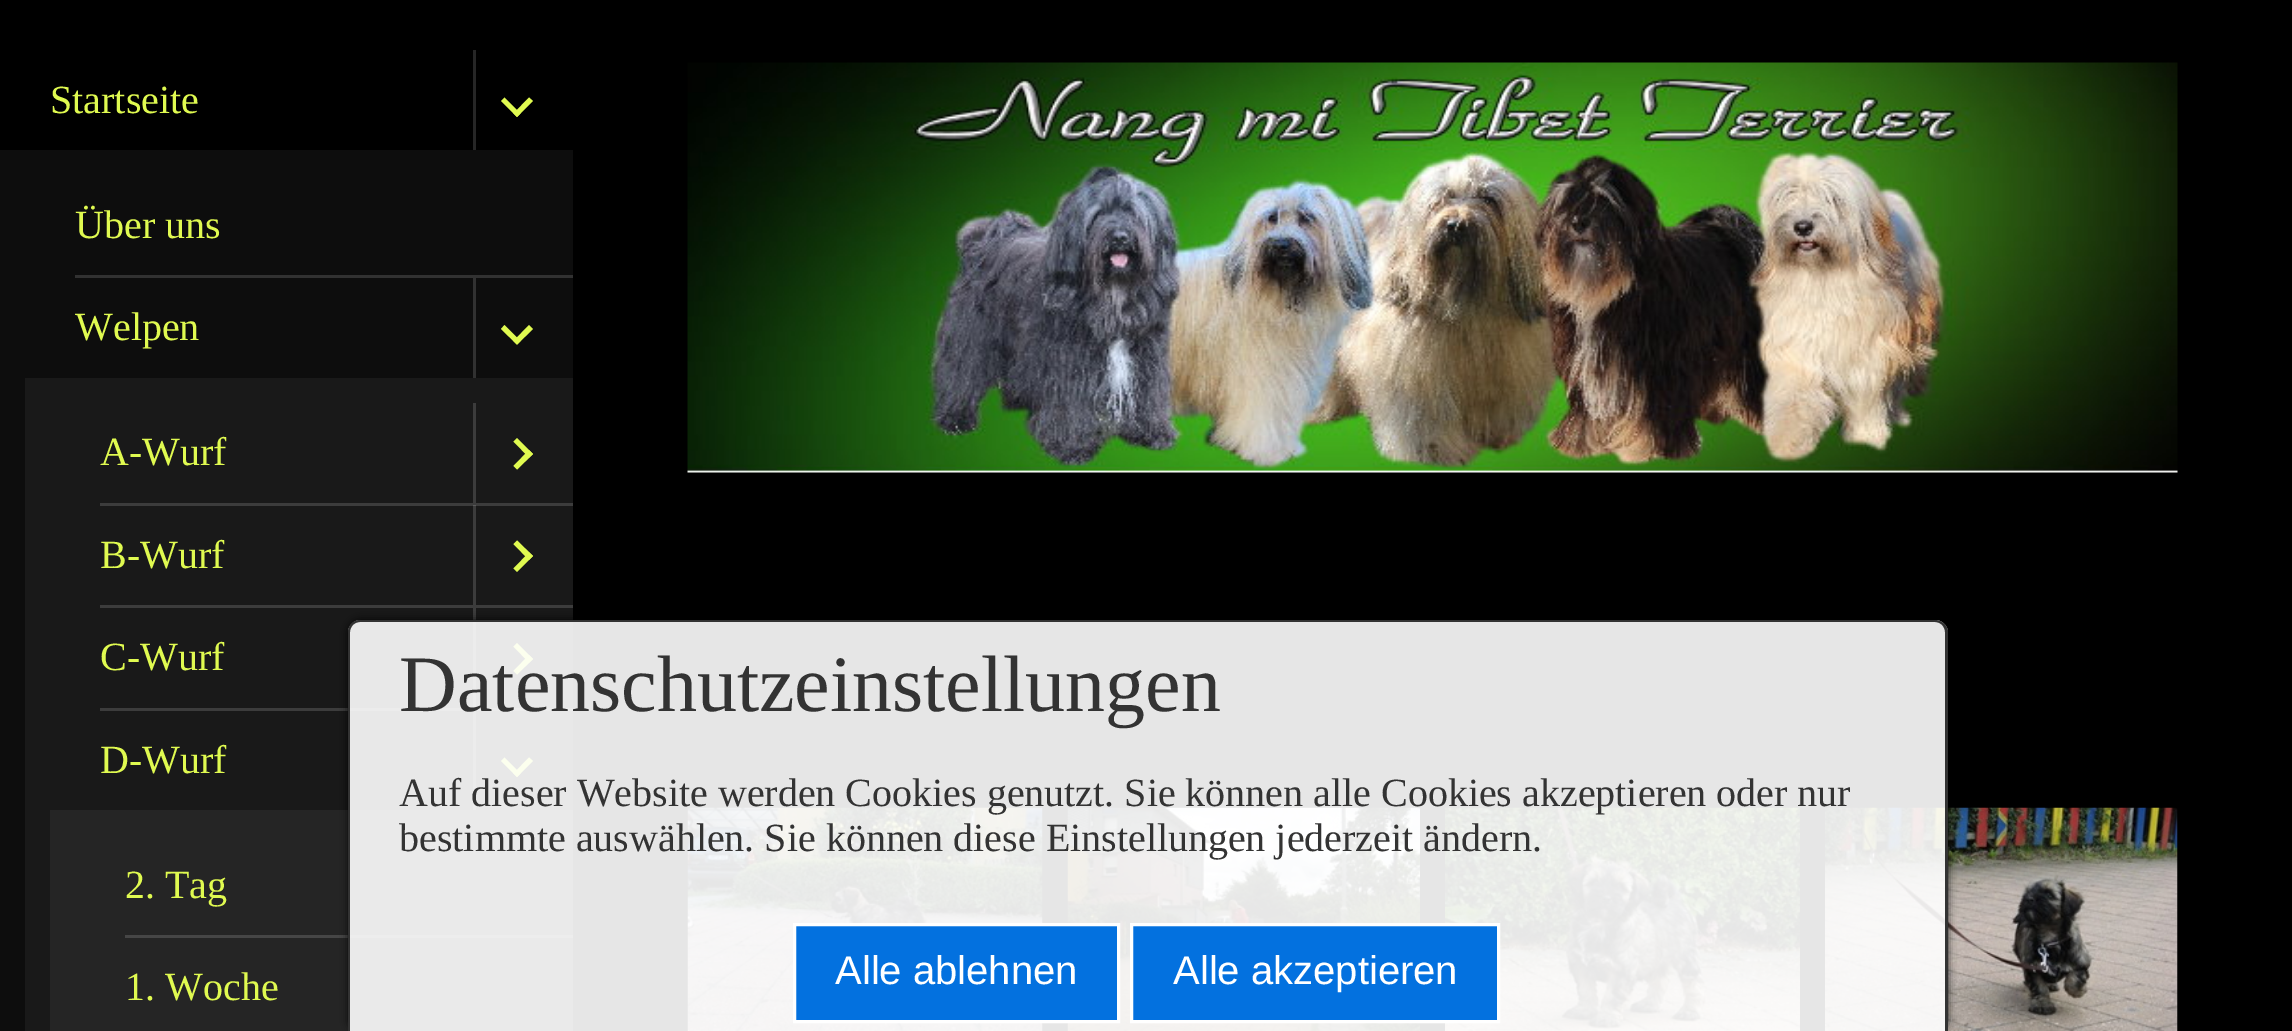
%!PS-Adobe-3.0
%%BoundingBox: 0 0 2292 1031
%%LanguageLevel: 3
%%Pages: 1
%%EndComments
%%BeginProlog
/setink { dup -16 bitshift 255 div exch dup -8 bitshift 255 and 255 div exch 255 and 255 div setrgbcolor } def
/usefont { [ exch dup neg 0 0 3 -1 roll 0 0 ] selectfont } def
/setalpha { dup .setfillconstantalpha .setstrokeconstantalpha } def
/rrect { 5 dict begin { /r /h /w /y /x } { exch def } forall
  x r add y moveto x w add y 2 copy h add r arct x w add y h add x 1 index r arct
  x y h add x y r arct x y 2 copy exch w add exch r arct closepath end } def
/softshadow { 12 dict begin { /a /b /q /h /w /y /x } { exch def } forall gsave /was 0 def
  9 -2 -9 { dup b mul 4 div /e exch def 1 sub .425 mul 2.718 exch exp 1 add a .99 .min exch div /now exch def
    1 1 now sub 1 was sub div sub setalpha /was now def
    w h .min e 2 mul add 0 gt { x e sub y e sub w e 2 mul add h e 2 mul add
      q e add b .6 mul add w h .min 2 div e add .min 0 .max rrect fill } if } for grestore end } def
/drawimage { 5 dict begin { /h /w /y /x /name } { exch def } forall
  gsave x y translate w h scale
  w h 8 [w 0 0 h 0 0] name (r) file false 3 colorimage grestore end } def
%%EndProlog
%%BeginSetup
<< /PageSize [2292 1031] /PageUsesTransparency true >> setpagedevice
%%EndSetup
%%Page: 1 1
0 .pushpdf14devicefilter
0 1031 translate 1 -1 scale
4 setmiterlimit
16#000000 setink
0 0 2292 1031 rectfill
/LiberationSerif-Regular 40 usefont
16#E0FA50 setink
50 113 moveto (Startseite) show
16#262626 setink
473 50 3 100 rectfill
16#E0FA50 setink
529 97.5 moveto 533 101 lineto 517 117 lineto 513.5 113.5 lineto closepath fill
504.5 97.5 moveto 520.5 113.5 lineto 517 117 lineto 501 101 lineto closepath fill
16#0D0D0D setink
0 150 573 881 rectfill
16#E0FA50 setink
75 238 moveto (Über uns) show
16#313131 setink
75 275 498 3 rectfill
16#E0FA50 setink
75 340 moveto (Welpen) show
16#313131 setink
473 278 3 100 rectfill
16#E0FA50 setink
529 325 moveto 533 329 lineto 517 344.5 lineto 513.5 341 lineto closepath fill
504.5 325 moveto 520.5 341 lineto 517 344.5 lineto 501 329 lineto closepath fill
[
    [25 378 548 653 16#191919]
    [473 710 3 100 16#3C3C3C]
    [473 505 3 100 16#3C3C3C]
] { aload pop setink rectfill } forall
16#E0FA50 setink
100 465 moveto (A-Wurf) show
16#3C3C3C setink
473 403 3 100 rectfill
16#E0FA50 setink
513.5 441.5 moveto 517 438 lineto 533 454 lineto 529 457.5 lineto closepath fill
513.5 466 moveto 529 450 lineto 533 454 lineto 517 469.5 lineto closepath fill
16#3C3C3C setink
100 503 473 3 rectfill
16#595959 setink
473 505 3 1 rectfill
16#E0FA50 setink
100 568 moveto (B-Wurf) show
513.5 544 moveto 517 540.5 lineto 533 556 lineto 529 560 lineto closepath fill
513.5 568.5 moveto 529 552.5 lineto 533 556 lineto 517 572 lineto closepath fill
16#3C3C3C setink
100 605 473 3 rectfill
16#E0FA50 setink
100 670 moveto (C-Wurf) show
16#3C3C3C setink
473 608 3 100 rectfill
16#E0FA50 setink
513.5 646.5 moveto 517 643 lineto 533 659 lineto 529 662.5 lineto closepath fill
513.5 671 moveto 529 655 lineto 533 659 lineto 517 674.5 lineto closepath fill
16#3C3C3C setink
100 708 473 3 rectfill
16#595959 setink
473 710 3 1 rectfill
16#E0FA50 setink
100 773 moveto (D-Wurf) show
529 757.5 moveto 533 761 lineto 517 777 lineto 513.5 773.5 lineto closepath fill
504.5 757.5 moveto 520.5 773.5 lineto 517 777 lineto 501 761 lineto closepath fill
16#252525 setink
50 810 523 221 rectfill
16#E0FA50 setink
125 898 moveto (2. Tag) show
16#464646 setink
125 935 448 3 rectfill
16#E0FA50 setink
125 1000 moveto (1. Woche) show
(img1.raw) 687 62 1491 411 drawimage
(img2.raw) 687 807 356 224 drawimage
(img3.raw) 1067 807 353 224 drawimage
(img4.raw) 1445 807 355 224 drawimage
(img5.raw) 1825 807 353 224 drawimage
gsave
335 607 moveto 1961 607 lineto 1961 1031 lineto 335 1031 lineto closepath 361 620 moveto 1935 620 lineto 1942 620 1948 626 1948 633 curveto 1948 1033 lineto 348 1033 lineto 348 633 lineto 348 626 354 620 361 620 curveto closepath eoclip newpath
16#000000 setink
348 620 1600 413 13 4 0.8 softshadow
grestore
0.9 setalpha
16#FFFFFF setink
361 620 moveto 1935 620 lineto 1942 620 1948 626 1948 633 curveto 1948 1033 lineto 348 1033 lineto 348 633 lineto 348 626 354 620 361 620 curveto closepath fill
1 setalpha
16#333333 setink
360 620 moveto 1935 620 lineto 1942 620 1948 626 1948 632 curveto 1948 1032 lineto 348 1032 lineto 348 632 lineto 348 626 353 620 360 620 curveto closepath 360 622 moveto 1935 622 lineto 1941 622 1945 627 1945 632 curveto 1945 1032 lineto 350 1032 lineto 350 632 lineto 350 627 354 622 360 622 curveto closepath eofill
/LiberationSerif-Regular 80 usefont
399 711 moveto (Datenschutzeinstellungen) show
/LiberationSerif-Regular 40 usefont
399 806 moveto (Auf dieser Website werden Cookies genutzt. Sie können alle Cookies akzeptieren oder nur) show
399 851 moveto (bestimmte auswählen. Sie können diese Einstellungen jederzeit ändern.) show
16#0371DF setink
794.5 924.5 moveto 1118.5 924.5 lineto 1118.5 1021.5 lineto 794.5 1021.5 lineto closepath gsave fill grestore
16#FFFFFF setink
3 setlinewidth
stroke
/LiberationSans-Regular 40 usefont
835 984 moveto (Alle ablehnen) show
16#0371DF setink
1131.5 924.5 moveto 1498.5 924.5 lineto 1498.5 1021.5 lineto 1131.5 1021.5 lineto closepath gsave fill grestore
16#FFFFFF setink
stroke
1173 984 moveto (Alle akzeptieren) show
.poppdf14devicefilter showpage
%%EOF
